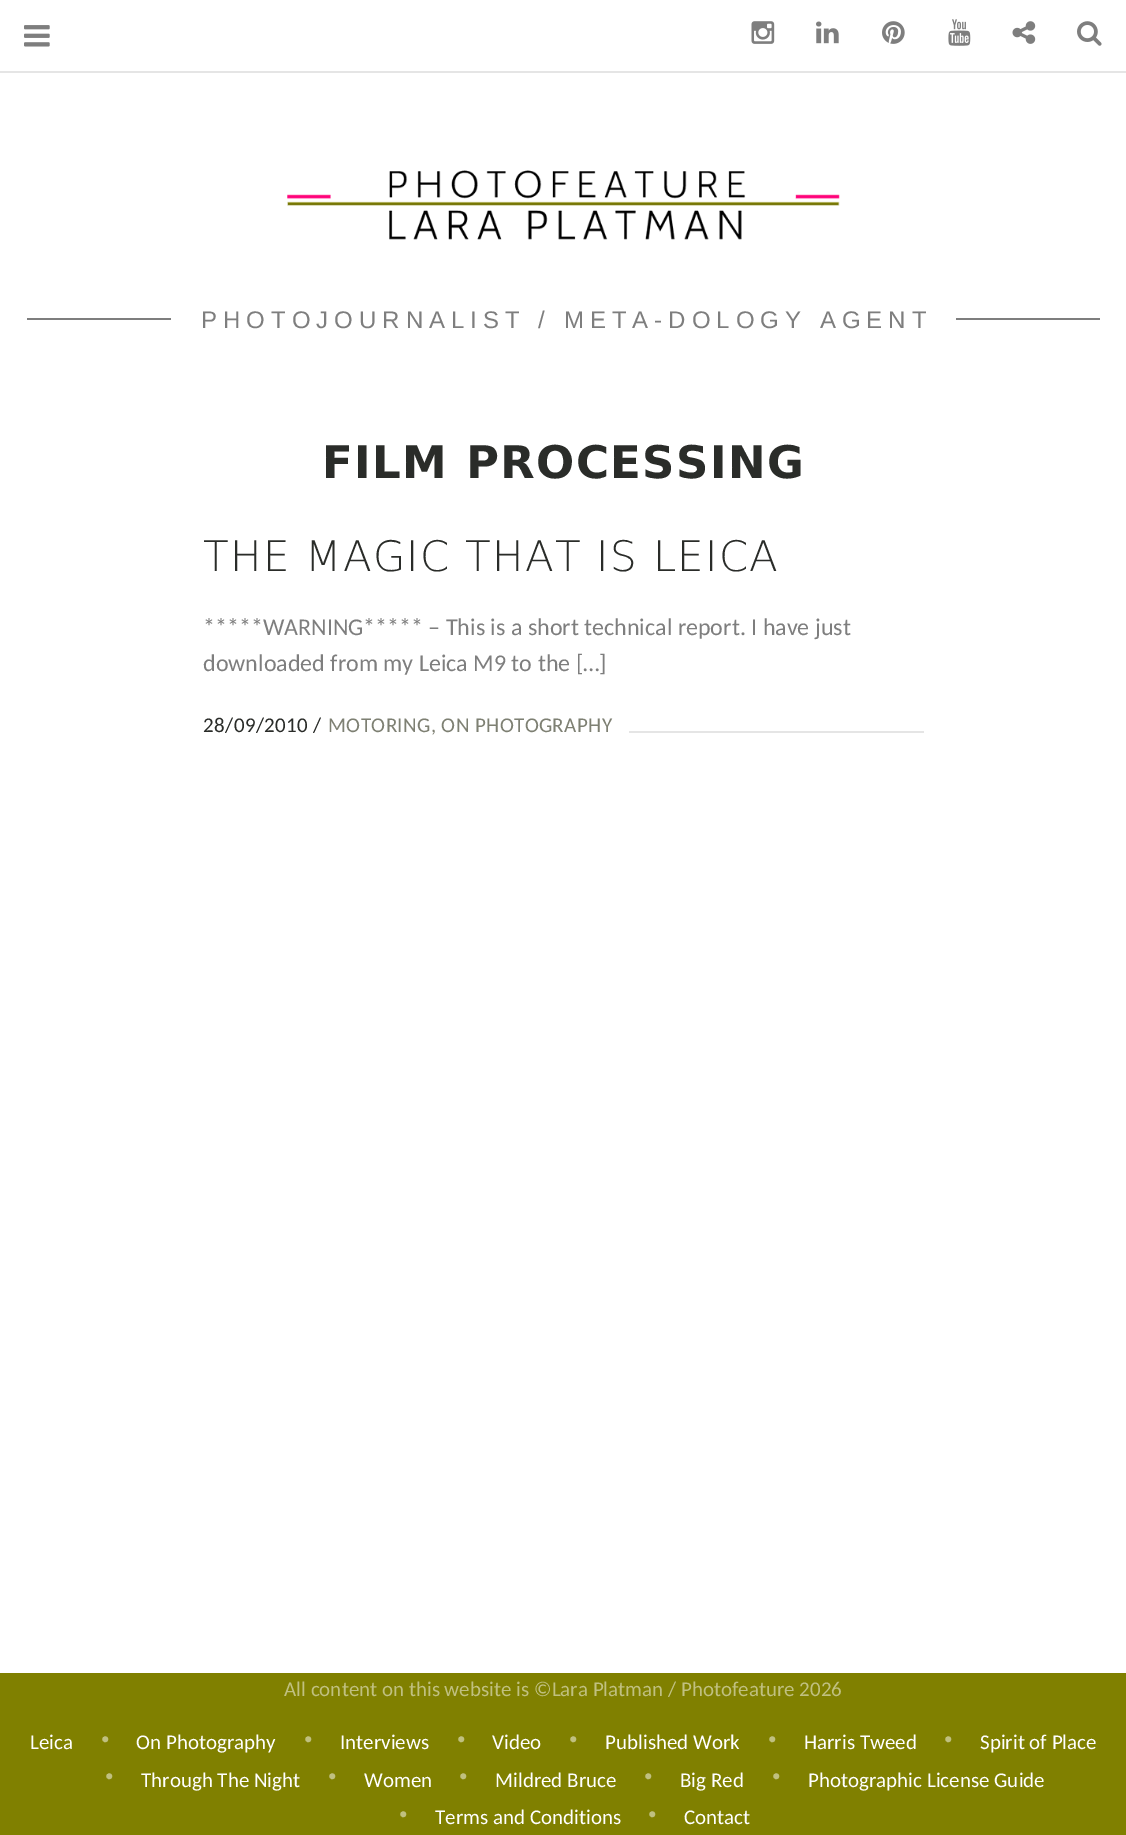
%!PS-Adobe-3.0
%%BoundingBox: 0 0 1126 1835
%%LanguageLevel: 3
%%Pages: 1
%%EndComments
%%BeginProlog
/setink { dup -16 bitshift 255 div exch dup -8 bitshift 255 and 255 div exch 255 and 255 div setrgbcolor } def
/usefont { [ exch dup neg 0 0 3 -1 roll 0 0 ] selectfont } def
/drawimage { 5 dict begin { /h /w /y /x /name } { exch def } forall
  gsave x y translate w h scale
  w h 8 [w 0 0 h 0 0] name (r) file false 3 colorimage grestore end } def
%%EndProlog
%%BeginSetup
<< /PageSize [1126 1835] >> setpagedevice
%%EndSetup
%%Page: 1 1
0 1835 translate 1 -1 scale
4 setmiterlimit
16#FFFFFF setink
0 0 1126 1835 rectfill
(img1.raw) 751 21 24 23 drawimage
(img2.raw) 816 21 23 23 drawimage
(img3.raw) 882 21 23 23 drawimage
(img4.raw) 948 19 23 27 drawimage
(img5.raw) 1012 21 24 23 drawimage
(img6.raw) 1077 21 25 25 drawimage
16#E5E5E5 setink
0 71 1126 2 rectfill
(img7.raw) 24 25 26 22 drawimage
(img8.raw) 287 170 553 70 drawimage
16#7E7E7E setink
27 318 1073 2 rectfill
16#FFFFFF setink
171 318 785 2 rectfill
/LiberationSans-Regular 24 usefont
16#7E7E7E setink
201 328 moveto 6 0 (PHOTOJOURNALIST / META-DOLOGY AGENT) ashow
/DejaVuSans-Bold 45 usefont
16#2A2C29 setink
322 478 moveto 1.4 0 (FILM PROCESSING) ashow
/DejaVuSans-ExtraLight 42 usefont
203 571 moveto 1.25 0 (THE MAGIC THAT IS LEICA) ashow
/Carlito-Regular 24 usefont
16#7E7E7E setink
203 635 moveto (*****WARNING***** – This is a short technical report. I have just) show
203 671 moveto (downloaded from my Leica M9 to the […]) show
/Carlito-Regular 21 usefont
16#2A2C29 setink
203 732 moveto 0.4 0 (28/09/2010 /) ashow
16#7E8073 setink
328 732 moveto 0.4 0 (MOTORING, ON PHOTOGRAPHY) ashow
16#E5E5E5 setink
629 731 295 2 rectfill
16#808000 setink
0 1673 1126 162 rectfill
16#C0C080 setink
284 1696 moveto (All content on this website is ©Lara Platman / Photofeature 2026) show
16#FFFFFF setink
30 1749 moveto (Leica) show
/DejaVuSansMono-Regular 21 usefont
16#C0C080 setink
99 1747 moveto (•) show
/Carlito-Regular 21 usefont
16#FFFFFF setink
136 1749 moveto (On Photography) show
/DejaVuSansMono-Regular 21 usefont
16#C0C080 setink
302 1747 moveto (•) show
/Carlito-Regular 21 usefont
16#FFFFFF setink
340 1749 moveto (Interviews) show
/DejaVuSansMono-Regular 21 usefont
16#C0C080 setink
455 1747 moveto (•) show
/Carlito-Regular 21 usefont
16#FFFFFF setink
492 1749 moveto (Video) show
/DejaVuSansMono-Regular 21 usefont
16#C0C080 setink
567 1747 moveto (•) show
/Carlito-Regular 21 usefont
16#FFFFFF setink
605 1749 moveto (Published Work) show
/DejaVuSansMono-Regular 21 usefont
16#C0C080 setink
766 1747 moveto (•) show
/Carlito-Regular 21 usefont
16#FFFFFF setink
804 1749 moveto (Harris Tweed) show
/DejaVuSansMono-Regular 21 usefont
16#C0C080 setink
942 1747 moveto (•) show
/Carlito-Regular 21 usefont
16#FFFFFF setink
980 1749 moveto (Spirit of Place) show
/DejaVuSansMono-Regular 21 usefont
16#C0C080 setink
103 1784 moveto (•) show
/Carlito-Regular 21 usefont
16#FFFFFF setink
141 1787 moveto (Through The Night) show
/DejaVuSansMono-Regular 21 usefont
16#C0C080 setink
326 1784 moveto (•) show
/Carlito-Regular 21 usefont
16#FFFFFF setink
364 1787 moveto (Women) show
/DejaVuSansMono-Regular 21 usefont
16#C0C080 setink
457 1784 moveto (•) show
/Carlito-Regular 21 usefont
16#FFFFFF setink
495 1787 moveto (Mildred Bruce) show
/DejaVuSansMono-Regular 21 usefont
16#C0C080 setink
642 1784 moveto (•) show
/Carlito-Regular 21 usefont
16#FFFFFF setink
680 1787 moveto (Big Red) show
/DejaVuSansMono-Regular 21 usefont
16#C0C080 setink
770 1784 moveto (•) show
/Carlito-Regular 21 usefont
16#FFFFFF setink
808 1787 moveto (Photographic License Guide) show
/DejaVuSansMono-Regular 21 usefont
16#C0C080 setink
397 1822 moveto (•) show
/Carlito-Regular 21 usefont
16#FFFFFF setink
435 1824 moveto (Terms and Conditions) show
/DejaVuSansMono-Regular 21 usefont
16#C0C080 setink
646 1822 moveto (•) show
/Carlito-Regular 21 usefont
16#FFFFFF setink
684 1824 moveto (Contact) show
showpage
%%EOF
